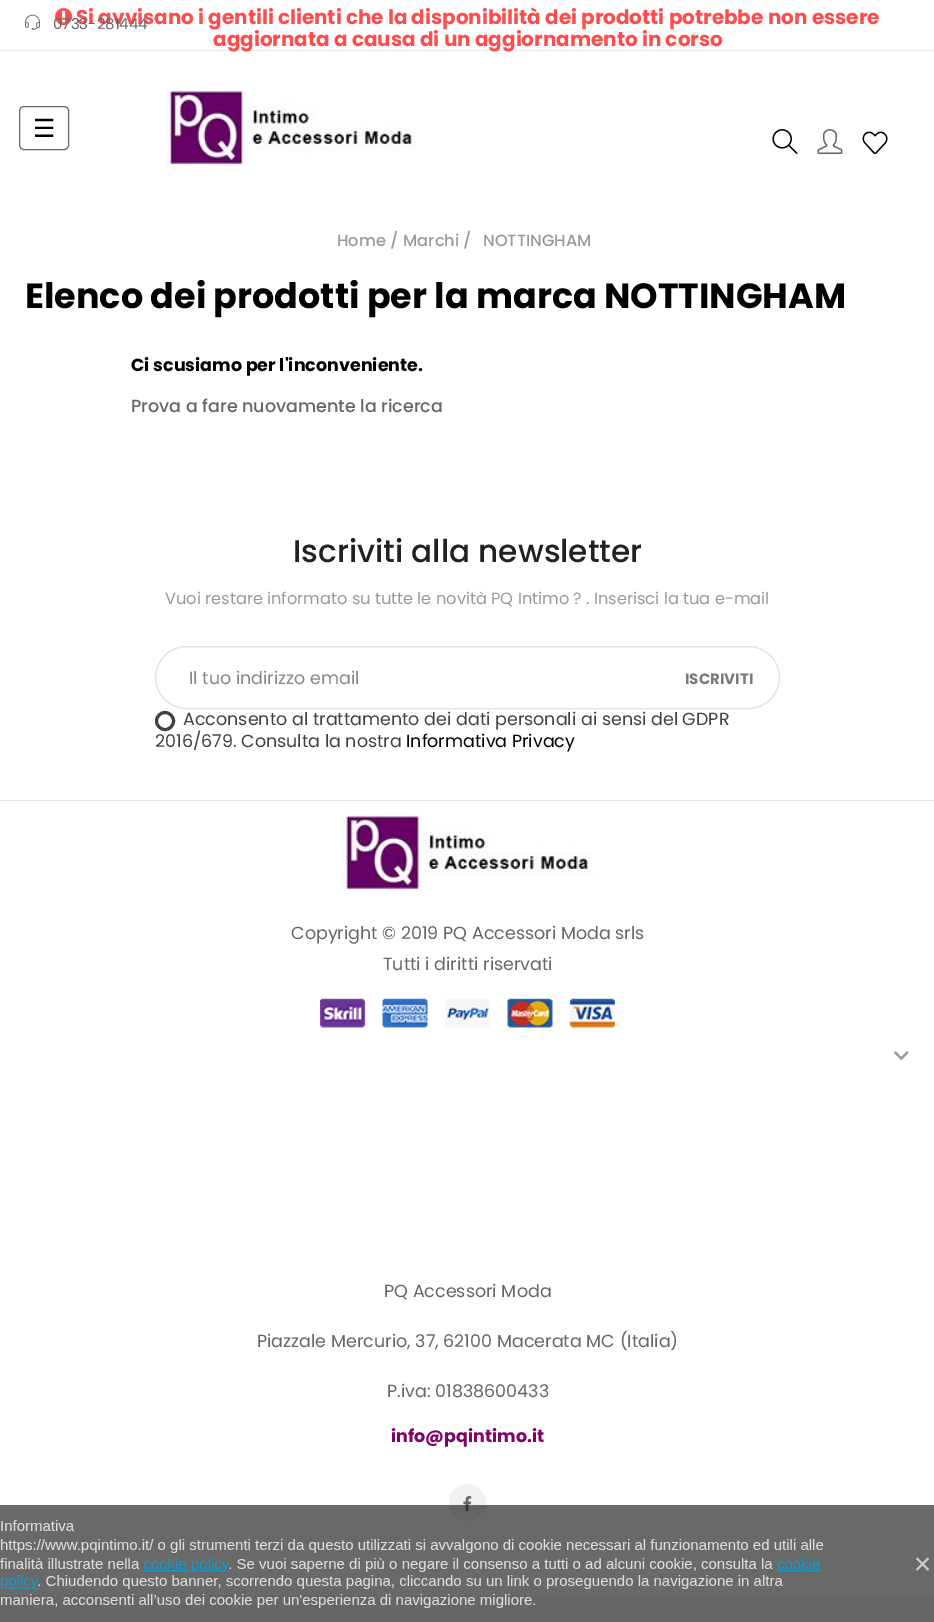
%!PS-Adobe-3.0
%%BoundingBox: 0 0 934 1622
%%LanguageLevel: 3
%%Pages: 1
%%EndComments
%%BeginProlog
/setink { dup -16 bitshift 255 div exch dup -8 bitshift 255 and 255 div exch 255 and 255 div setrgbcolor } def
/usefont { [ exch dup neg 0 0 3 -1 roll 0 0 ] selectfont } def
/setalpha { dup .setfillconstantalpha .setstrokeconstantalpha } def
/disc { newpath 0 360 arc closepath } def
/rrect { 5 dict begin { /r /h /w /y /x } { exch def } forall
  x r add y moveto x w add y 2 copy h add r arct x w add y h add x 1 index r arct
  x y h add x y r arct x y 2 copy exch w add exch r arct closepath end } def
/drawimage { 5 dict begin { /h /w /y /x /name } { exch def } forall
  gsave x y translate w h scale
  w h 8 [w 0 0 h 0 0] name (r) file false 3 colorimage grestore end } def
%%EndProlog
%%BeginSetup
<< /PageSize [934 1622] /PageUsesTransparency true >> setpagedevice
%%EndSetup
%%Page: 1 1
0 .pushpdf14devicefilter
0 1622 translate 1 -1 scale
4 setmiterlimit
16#F8F8F8 setink
0 0 934 1622 rectfill
16#FFFFFF setink
0 0 934 1595 rectfill
16#EBEBEB setink
0 50 934 1 rectfill
(img1.raw) 55 8 18 18 drawimage
/Poppins-Bold 20 usefont
16#FF4C4C setink
76 24 moveto (Si avvisano i gentili clienti che la disponibilità dei prodotti potrebbe non essere) show
213 46 moveto (aggiornata a causa di un aggiornamento in corso) show
(img2.raw) 25 14 15 16 drawimage
/Poppins-Regular 15 usefont
16#666666 setink
53 29 moveto (0733-281444) show
19.5 106.5 49 43 4.5 rrect stroke
/DejaVuSans-Regular 25 usefont
16#000000 setink
33 137 moveto (☰) show
(img3.raw) 166 90 250 76 drawimage
(img4.raw) 772 129 26 25 drawimage
(img5.raw) 817 129 26 26 drawimage
(img6.raw) 862 131 26 23 drawimage
/Poppins-Medium 16.25 usefont
16#999999 setink
[
    [(Home /) 337 246]
    [(Marchi /) 403 246]
    [(NOTTINGHAM) 483 246]
] { aload pop moveto show } forall
/Poppins-Bold 35 usefont
16#000000 setink
25 308 moveto (Elenco dei prodotti per la marca NOTTINGHAM) show
/Poppins-Bold 17.5 usefont
131 371 moveto (Ci scusiamo per l'inconveniente.) show
/Poppins-Medium 17.5 usefont
16#666666 setink
131 412 moveto (Prova a fare nuovamente la ricerca) show
/Poppins-Medium 31.25 usefont
16#212121 setink
293 562 moveto (Iscriviti alla newsletter) show
/Poppins-Regular 16.25 usefont
16#999999 setink
165 604 moveto (Vuoi restare informato su tutte le novità PQ Intimo ? . Inserisci la tua e-mail) show
16#E1E1E1 setink
155.5 646.5 624 62 31 rrect stroke
/Poppins-Regular 17.5 usefont
16#878787 setink
189 684 moveto (Il tuo indirizzo email) show
/Poppins-Bold 15 usefont
16#7A7A7A setink
685 684 moveto (ISCRIVITI) show
16#414141 setink
3 setlinewidth
165 721 8.5 disc stroke
/Poppins-Regular 17.5 usefont
183 725 moveto (Acconsento al trattamento dei dati personali ai sensi del GDPR) show
155 747 moveto (2016/679. Consulta la nostra) show
16#000000 setink
406 747 moveto (Informativa Privacy) show
16#E5E5E5 setink
0 800 934 1 rectfill
(img7.raw) 342 815 251 76 drawimage
16#666666 setink
291 939 moveto (Copyright © 2019 PQ Accessori Moda srls) show
383 970 moveto (Tutti i diritti riservati) show
(img8.raw) 320 998 295 30 drawimage
(img9.raw) 893 1051 16 10 drawimage
[
    [(PQ Accessori Moda) 384 1297]
    [(Piazzale Mercurio, 37, 62100 Macerata MC \(Italia\)) 257 1347]
    [(P.iva: 01838600433) 387 1397]
] { aload pop moveto show } forall
/Poppins-Bold 17.5 usefont
16#820268 setink
391 1442 moveto (info@pqintimo.it) show
16#F2F2F2 setink
467.5 1502.5 18 disc gsave fill grestore
1 setlinewidth
stroke
(img10.raw) 463 1496 9 16 drawimage
0.63 setalpha
16#111111 setink
0 1505 934 117 rectfill
1 setalpha
(img11.raw) 0 1520 930 88 drawimage
.poppdf14devicefilter showpage
%%EOF
